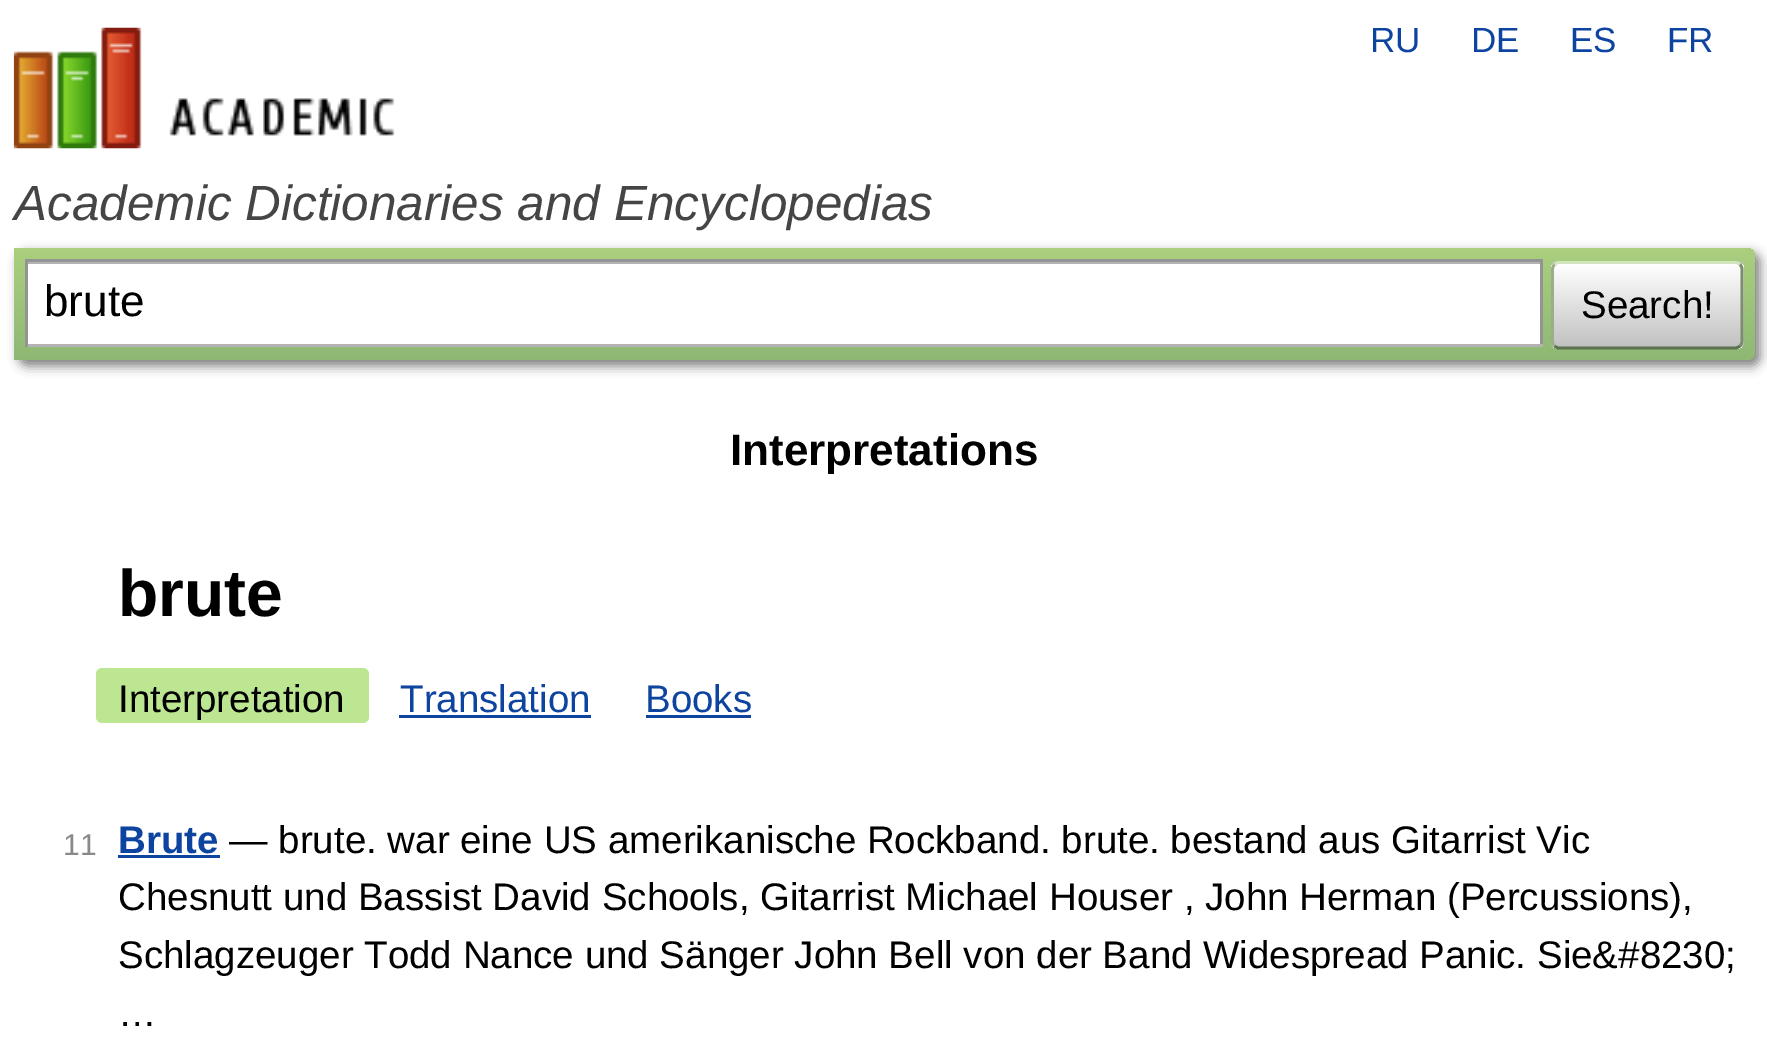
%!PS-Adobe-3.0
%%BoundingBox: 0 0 1767 1038
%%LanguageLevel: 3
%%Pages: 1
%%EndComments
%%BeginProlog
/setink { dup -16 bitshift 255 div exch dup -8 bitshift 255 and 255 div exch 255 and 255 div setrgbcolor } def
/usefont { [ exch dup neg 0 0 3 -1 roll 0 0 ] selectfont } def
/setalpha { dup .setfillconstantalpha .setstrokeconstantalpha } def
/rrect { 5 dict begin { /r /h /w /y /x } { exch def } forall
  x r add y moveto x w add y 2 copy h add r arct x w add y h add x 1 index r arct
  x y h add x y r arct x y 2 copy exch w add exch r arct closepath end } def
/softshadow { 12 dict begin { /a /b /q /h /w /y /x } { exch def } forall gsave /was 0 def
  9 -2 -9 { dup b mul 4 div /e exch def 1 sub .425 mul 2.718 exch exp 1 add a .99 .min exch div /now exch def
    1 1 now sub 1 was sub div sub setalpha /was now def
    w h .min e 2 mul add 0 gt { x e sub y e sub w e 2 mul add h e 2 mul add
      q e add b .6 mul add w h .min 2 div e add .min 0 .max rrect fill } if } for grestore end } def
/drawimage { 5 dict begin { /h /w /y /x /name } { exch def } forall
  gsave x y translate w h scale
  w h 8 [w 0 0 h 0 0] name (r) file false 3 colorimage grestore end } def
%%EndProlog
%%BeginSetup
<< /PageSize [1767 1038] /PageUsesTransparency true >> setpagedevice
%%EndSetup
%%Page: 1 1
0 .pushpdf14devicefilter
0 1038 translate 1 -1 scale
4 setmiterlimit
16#FFFFFF setink
0 0 1767 1038 rectfill
(img1.raw) 13 27 382 122 drawimage
/LiberationSans-Regular 35 usefont
16#0D44A0 setink
[
    [(RU) 1370 52]
    [(DE) 1471 52]
    [(ES) 1570 52]
    [(FR) 1667 52]
] { aload pop moveto show } forall
/LiberationSans-Italic 49.5 usefont
16#454545 setink
14 220 moveto (Academic Dictionaries and Encyclopedias) show
16#000000 setink
19 253 1741 113 8 5.5 0.5 softshadow
gsave 14 248 moveto 1747 248 lineto 1751.5 248 1755 251.5 1755 256 curveto 1755 352 lineto 1755 356.5 1751.5 360 1747 360 curveto 14 360 lineto closepath clip newpath
<< /ShadingType 2 /ColorSpace /DeviceRGB /Coords [884 247 884 360] /Extend [true true] /Function << /FunctionType 2 /Domain [0 1] /C0 [0.671 0.812 0.494] /C1 [0.557 0.722 0.455] /N 1 >> >> shfill grestore
[
    [28 264 1512 80 16#FFFFFF]
    [28 262 1512 2 16#B3B3B3]
    [25 259 1518 3 16#949494]
    [1540 259 3 88 16#949494]
    [25 344 1518 3 16#B4B4B4]
    [25 259 3 88 16#949494]
] { aload pop setink rectfill } forall
/LiberationSans-Regular 44 usefont
16#000000 setink
44 316 moveto (brute) show
gsave
1551 261 193 88 8 rrect clip newpath
gsave 1551 261 moveto 1744 261 lineto 1744 264 lineto 1551 264 lineto closepath clip newpath
<< /ShadingType 2 /ColorSpace /DeviceRGB /Coords [1647 182 1647 264] /Extend [true true] /Function << /FunctionType 2 /Domain [0 1] /C0 [1 1 1] /C1 [0.757 0.757 0.757] /N 1 >> >> shfill grestore
gsave 1551 264 moveto 1744 264 lineto 1744 347 lineto 1551 347 lineto closepath clip newpath
<< /ShadingType 2 /ColorSpace /DeviceRGB /Coords [1647 264 1647 347] /Extend [true true] /Function << /FunctionType 2 /Domain [0 1] /C0 [1 1 1] /C1 [0.757 0.757 0.757] /N 1 >> >> shfill grestore
gsave 1551 347 moveto 1744 347 lineto 1744 349 lineto 1551 349 lineto closepath clip newpath
<< /ShadingType 2 /ColorSpace /DeviceRGB /Coords [1647 347 1647 429] /Extend [true true] /Function << /FunctionType 2 /Domain [0 1] /C0 [1 1 1] /C1 [0.757 0.757 0.757] /N 1 >> >> shfill grestore
grestore
16#D1E4BC setink
2.8 setlinewidth
1554.5 264.5 moveto 1555.5 263.5 1557.5 262.5 1559 262.5 curveto 1735 262.5 lineto 1737 262.5 1739 263.5 1740 264.5 curveto stroke
16#7A8E69 setink
1740 264.5 moveto 1741.5 266 1742 267.5 1742 269.5 curveto 1742 341 lineto 1742 343 1741.5 344.5 1740 346 curveto stroke
16#5D7250 setink
1740 346 moveto 1739 347 1737 348 1735 348 curveto 1559 348 lineto 1557.5 348 1555.5 347 1554.5 346 curveto stroke
16#9AAE89 setink
1554.5 346 moveto 1553 344.5 1552.5 343 1552.5 341 curveto 1552.5 269.5 lineto 1552.5 267.5 1553 266 1554.5 264.5 curveto stroke
/LiberationSans-Regular 38.5 usefont
16#000000 setink
1581 318 moveto (Search!) show
/LiberationSans-Bold 44 usefont
730 465 moveto (Interpretations) show
/LiberationSans-Bold 66 usefont
118 616 moveto (brute) show
16#BDE693 setink
96 668 273 55 6 rrect fill
/LiberationSans-Regular 38.5 usefont
16#000000 setink
118 712 moveto (Interpretation) show
16#0D44A0 setink
400 712 moveto (Translation) show
399 715 192 3 rectfill
645 712 moveto (Books) show
646 715 105 3 rectfill
/LiberationSans-Regular 30 usefont
16#898989 setink
63 855 moveto (11) show
/LiberationSans-Bold 38.5 usefont
16#0D44A0 setink
118 853 moveto (Brute) show
118 855 102 3 rectfill
/LiberationSans-Regular 38.5 usefont
16#000000 setink
[
    [(— brute. war eine US amerikanische Rockband. brute. bestand aus Gitarrist Vic) 229 853]
    [(Chesnutt und Bassist David Schools, Gitarrist Michael Houser , John Herman \(Percussions\),) 118 910]
    [(Schlagzeuger Todd Nance und Sänger John Bell von der Band Widespread Panic. Sie&#8230;) 118 968]
    [(…) 118 1026]
] { aload pop moveto show } forall
.poppdf14devicefilter showpage
%%EOF
